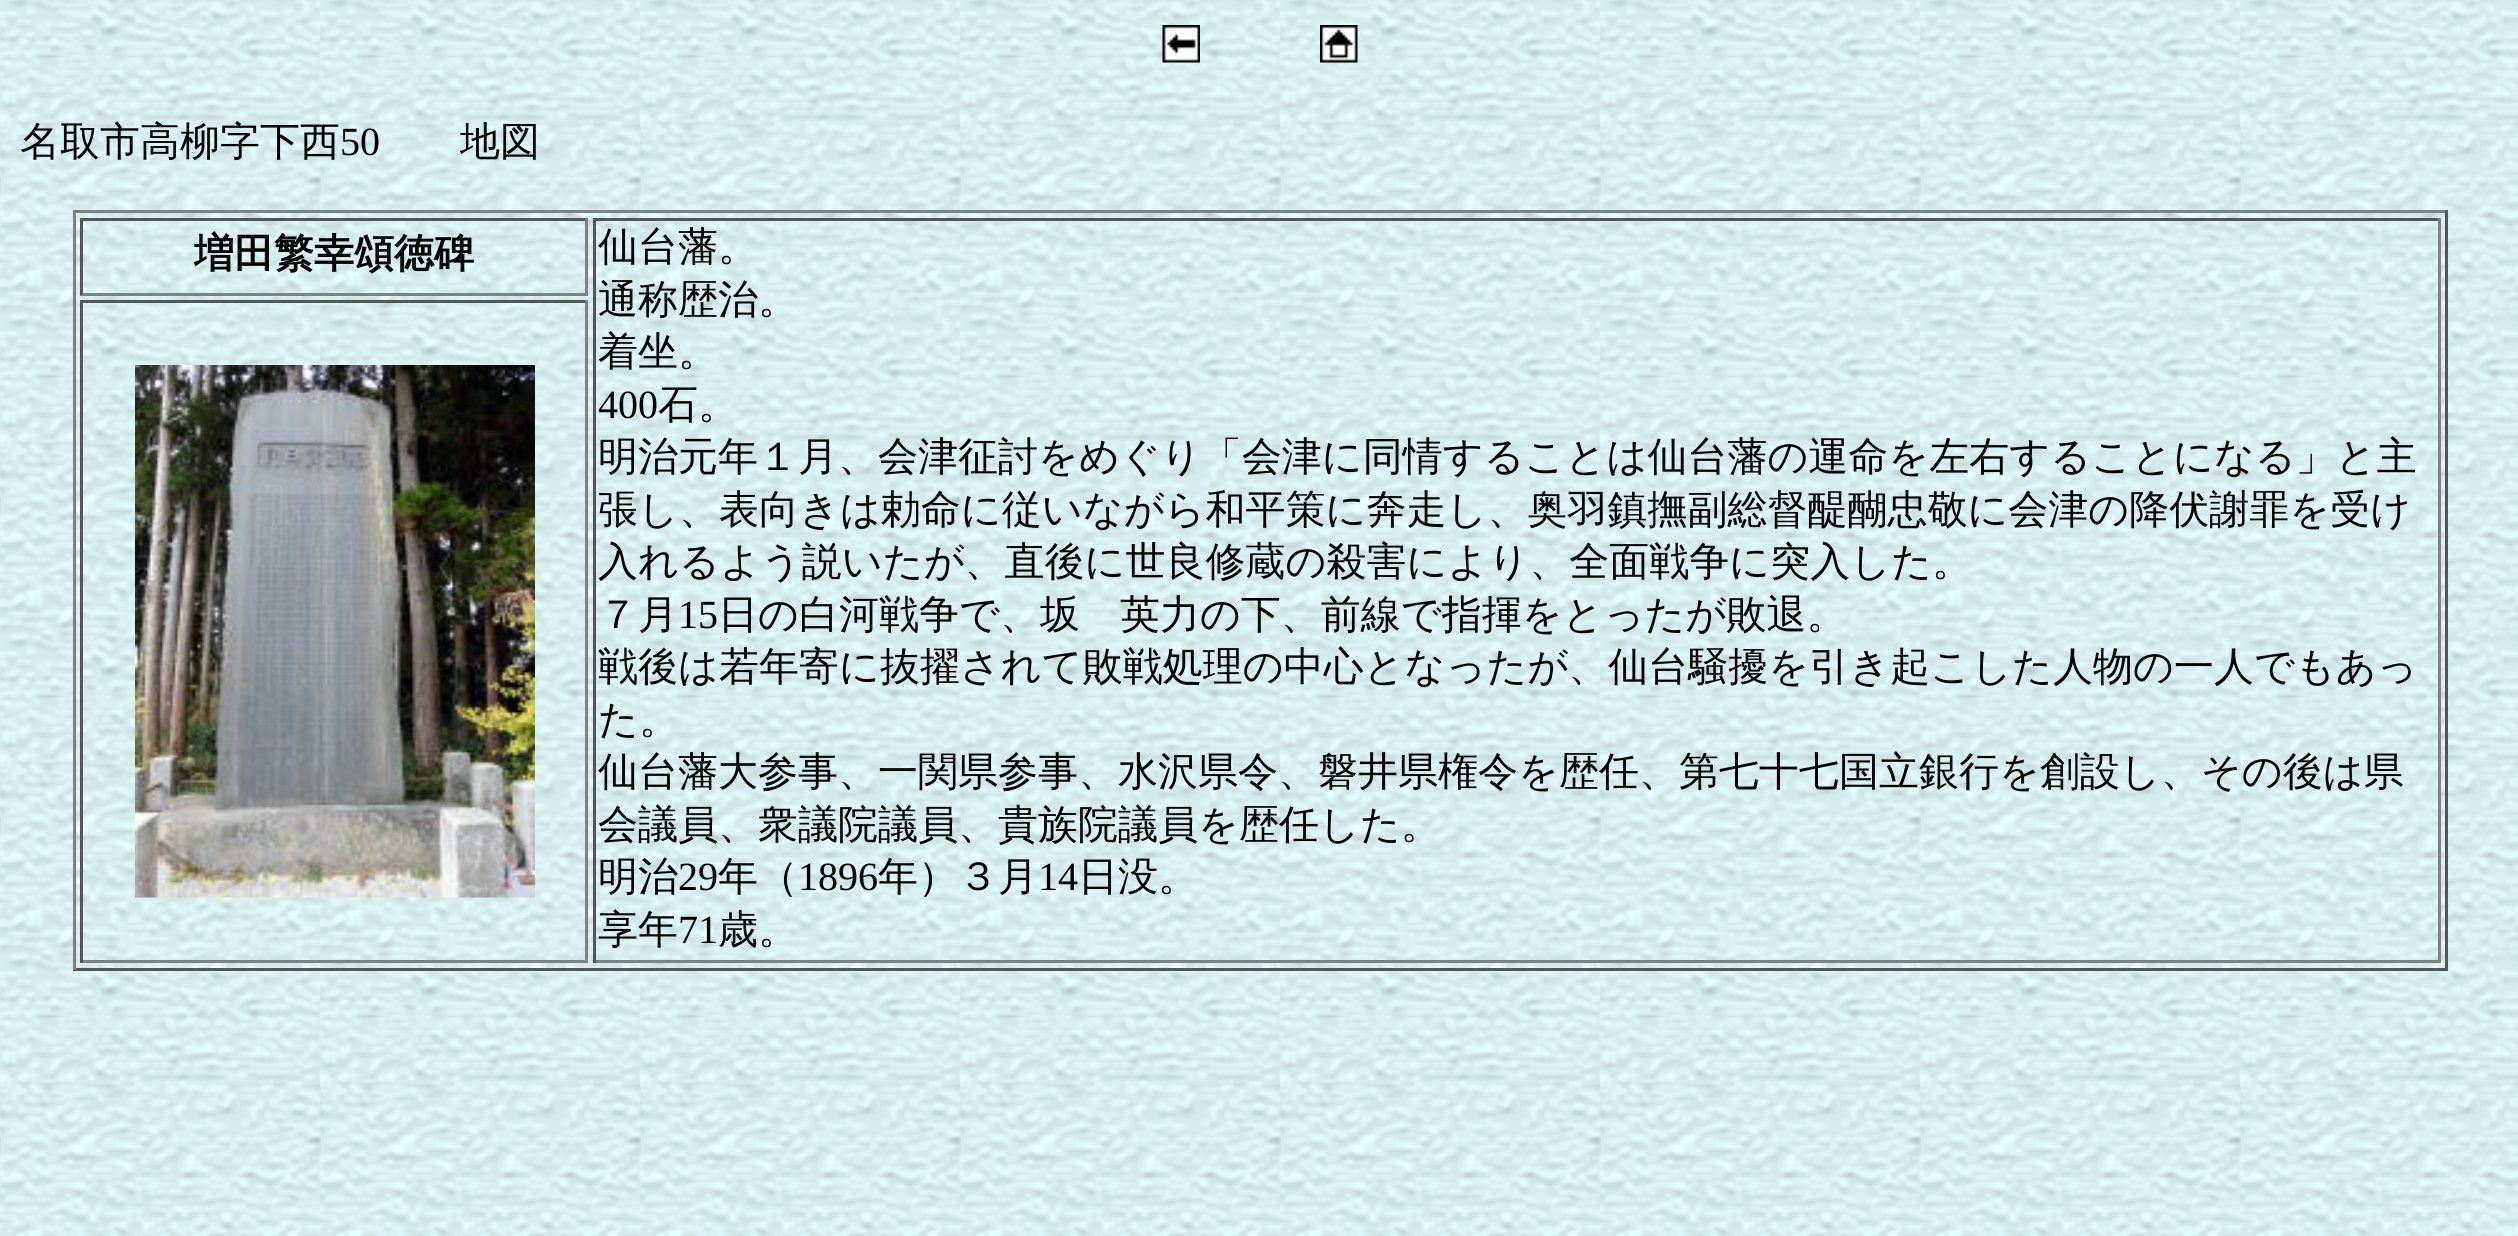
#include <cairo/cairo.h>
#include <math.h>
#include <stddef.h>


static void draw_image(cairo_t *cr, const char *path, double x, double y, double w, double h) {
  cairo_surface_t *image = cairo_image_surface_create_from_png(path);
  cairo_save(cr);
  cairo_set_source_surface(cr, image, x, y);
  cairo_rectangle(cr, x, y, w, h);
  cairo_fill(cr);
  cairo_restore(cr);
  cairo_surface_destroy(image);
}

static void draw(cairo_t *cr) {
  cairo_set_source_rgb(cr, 1, 1, 1);
  cairo_paint(cr);
  draw_image(cr, "images/1.png", 0, 0, 2518, 1236);
  draw_image(cr, "images/2.png", 1162, 25, 38, 38);
  draw_image(cr, "images/3.png", 1320, 25, 38, 38);
  cairo_set_source_rgb(cr, 128 / 255.0, 128 / 255.0, 128 / 255.0);
  cairo_rectangle(cr, 73, 210, 2375, 3);
  cairo_fill(cr);
  cairo_set_source_rgb(cr, 85 / 255.0, 85 / 255.0, 85 / 255.0);
  cairo_rectangle(cr, 2445, 210, 3, 760);
  cairo_fill(cr);
  cairo_rectangle(cr, 73, 968, 2375, 3);
  cairo_fill(cr);
  cairo_set_source_rgb(cr, 128 / 255.0, 128 / 255.0, 128 / 255.0);
  cairo_rectangle(cr, 73, 210, 3, 760);
  cairo_fill(cr);
  cairo_set_source_rgb(cr, 85 / 255.0, 85 / 255.0, 85 / 255.0);
  cairo_rectangle(cr, 80, 218, 508, 3);
  cairo_fill(cr);
  cairo_set_source_rgb(cr, 128 / 255.0, 128 / 255.0, 128 / 255.0);
  cairo_rectangle(cr, 585, 218, 3, 77);
  cairo_fill(cr);
  cairo_rectangle(cr, 80, 293, 508, 3);
  cairo_fill(cr);
  cairo_set_source_rgb(cr, 85 / 255.0, 85 / 255.0, 85 / 255.0);
  cairo_rectangle(cr, 80, 218, 3, 77);
  cairo_fill(cr);
  cairo_rectangle(cr, 593, 218, 1847, 3);
  cairo_fill(cr);
  cairo_set_source_rgb(cr, 128 / 255.0, 128 / 255.0, 128 / 255.0);
  cairo_rectangle(cr, 2438, 218, 3, 745);
  cairo_fill(cr);
  cairo_rectangle(cr, 593, 960, 1847, 3);
  cairo_fill(cr);
  cairo_set_source_rgb(cr, 85 / 255.0, 85 / 255.0, 85 / 255.0);
  cairo_rectangle(cr, 593, 218, 3, 745);
  cairo_fill(cr);
  cairo_rectangle(cr, 80, 300, 508, 3);
  cairo_fill(cr);
  cairo_set_source_rgb(cr, 128 / 255.0, 128 / 255.0, 128 / 255.0);
  cairo_rectangle(cr, 585, 300, 3, 663);
  cairo_fill(cr);
  cairo_rectangle(cr, 80, 960, 508, 3);
  cairo_fill(cr);
  cairo_set_source_rgb(cr, 85 / 255.0, 85 / 255.0, 85 / 255.0);
  cairo_rectangle(cr, 80, 300, 3, 663);
  cairo_fill(cr);
  draw_image(cr, "images/4.png", 135, 365, 400, 533);
  cairo_select_font_face(cr, "WenQuanYi Zen Hei Medium", CAIRO_FONT_SLANT_NORMAL, CAIRO_FONT_WEIGHT_NORMAL);
  cairo_set_font_size(cr, 40);
  cairo_set_source_rgb(cr, 0, 0, 0);
  cairo_move_to(cr, 20, 155);
  cairo_show_text(cr, "名取市高柳字下西");
  cairo_select_font_face(cr, "Liberation Serif", CAIRO_FONT_SLANT_NORMAL, CAIRO_FONT_WEIGHT_NORMAL);
  cairo_move_to(cr, 340, 155);
  cairo_show_text(cr, "50");
  cairo_select_font_face(cr, "WenQuanYi Zen Hei Medium", CAIRO_FONT_SLANT_NORMAL, CAIRO_FONT_WEIGHT_NORMAL);
  cairo_move_to(cr, 460, 155);
  cairo_show_text(cr, "地図");
  cairo_select_font_face(cr, "WenQuanYi Zen Hei", CAIRO_FONT_SLANT_NORMAL, CAIRO_FONT_WEIGHT_BOLD);
  cairo_move_to(cr, 194, 267);
  cairo_show_text(cr, "増田繁幸頌徳碑");
  cairo_select_font_face(cr, "WenQuanYi Zen Hei Medium", CAIRO_FONT_SLANT_NORMAL, CAIRO_FONT_WEIGHT_NORMAL);
  cairo_move_to(cr, 598, 260);
  cairo_show_text(cr, "仙台藩。");
  cairo_move_to(cr, 598, 313);
  cairo_show_text(cr, "通称歴治。");
  cairo_move_to(cr, 598, 365);
  cairo_show_text(cr, "着坐。");
  cairo_select_font_face(cr, "Liberation Serif", CAIRO_FONT_SLANT_NORMAL, CAIRO_FONT_WEIGHT_NORMAL);
  cairo_move_to(cr, 598, 418);
  cairo_show_text(cr, "400");
  cairo_select_font_face(cr, "WenQuanYi Zen Hei Medium", CAIRO_FONT_SLANT_NORMAL, CAIRO_FONT_WEIGHT_NORMAL);
  cairo_move_to(cr, 658, 418);
  cairo_show_text(cr, "石。");
  cairo_move_to(cr, 598, 470);
  cairo_show_text(cr, "明治元年１月、会津征討をめぐり「会津に同情することは仙台藩の運命を左右することになる」と主");
  cairo_move_to(cr, 598, 523);
  cairo_show_text(cr, "張し、表向きは勅命に従いながら和平策に奔走し、奥羽鎮撫副総督醍醐忠敬に会津の降伏謝罪を受け");
  cairo_move_to(cr, 598, 575);
  cairo_show_text(cr, "入れるよう説いたが、直後に世良修蔵の殺害により、全面戦争に突入した。");
  cairo_move_to(cr, 598, 628);
  cairo_show_text(cr, "７月");
  cairo_select_font_face(cr, "Liberation Serif", CAIRO_FONT_SLANT_NORMAL, CAIRO_FONT_WEIGHT_NORMAL);
  cairo_move_to(cr, 678, 628);
  cairo_show_text(cr, "15");
  cairo_select_font_face(cr, "WenQuanYi Zen Hei Medium", CAIRO_FONT_SLANT_NORMAL, CAIRO_FONT_WEIGHT_NORMAL);
  cairo_move_to(cr, 718, 628);
  cairo_show_text(cr, "日の白河戦争で、坂　英力の下、前線で指揮をとったが敗退。");
  cairo_move_to(cr, 598, 680);
  cairo_show_text(cr, "戦後は若年寄に抜擢されて敗戦処理の中心となったが、仙台騒擾を引き起こした人物の一人でもあっ");
  cairo_move_to(cr, 598, 733);
  cairo_show_text(cr, "た。");
  cairo_move_to(cr, 598, 785);
  cairo_show_text(cr, "仙台藩大参事、一関県参事、水沢県令、磐井県権令を歴任、第七十七国立銀行を創設し、その後は県");
  cairo_move_to(cr, 598, 838);
  cairo_show_text(cr, "会議員、衆議院議員、貴族院議員を歴任した。");
  cairo_move_to(cr, 598, 890);
  cairo_show_text(cr, "明治");
  cairo_select_font_face(cr, "Liberation Serif", CAIRO_FONT_SLANT_NORMAL, CAIRO_FONT_WEIGHT_NORMAL);
  cairo_move_to(cr, 678, 890);
  cairo_show_text(cr, "29");
  cairo_select_font_face(cr, "WenQuanYi Zen Hei Medium", CAIRO_FONT_SLANT_NORMAL, CAIRO_FONT_WEIGHT_NORMAL);
  cairo_move_to(cr, 718, 890);
  cairo_show_text(cr, "年（");
  cairo_select_font_face(cr, "Liberation Serif", CAIRO_FONT_SLANT_NORMAL, CAIRO_FONT_WEIGHT_NORMAL);
  cairo_move_to(cr, 798, 890);
  cairo_show_text(cr, "1896");
  cairo_select_font_face(cr, "WenQuanYi Zen Hei Medium", CAIRO_FONT_SLANT_NORMAL, CAIRO_FONT_WEIGHT_NORMAL);
  cairo_move_to(cr, 878, 890);
  cairo_show_text(cr, "年）３月");
  cairo_select_font_face(cr, "Liberation Serif", CAIRO_FONT_SLANT_NORMAL, CAIRO_FONT_WEIGHT_NORMAL);
  cairo_move_to(cr, 1038, 890);
  cairo_show_text(cr, "14");
  cairo_select_font_face(cr, "WenQuanYi Zen Hei Medium", CAIRO_FONT_SLANT_NORMAL, CAIRO_FONT_WEIGHT_NORMAL);
  cairo_move_to(cr, 1078, 890);
  cairo_show_text(cr, "日没。");
  cairo_move_to(cr, 598, 943);
  cairo_show_text(cr, "享年");
  cairo_select_font_face(cr, "Liberation Serif", CAIRO_FONT_SLANT_NORMAL, CAIRO_FONT_WEIGHT_NORMAL);
  cairo_move_to(cr, 678, 943);
  cairo_show_text(cr, "71");
  cairo_select_font_face(cr, "WenQuanYi Zen Hei Medium", CAIRO_FONT_SLANT_NORMAL, CAIRO_FONT_WEIGHT_NORMAL);
  cairo_move_to(cr, 718, 943);
  cairo_show_text(cr, "歳。");
}

int main(void) {
  cairo_surface_t *surface = cairo_image_surface_create(CAIRO_FORMAT_RGB24, 2518, 1236);
  cairo_t *cr = cairo_create(surface);
  cairo_font_options_t *options = cairo_font_options_create();
  cairo_font_options_set_hint_metrics(options, CAIRO_HINT_METRICS_OFF);
  cairo_font_options_set_hint_style(options, CAIRO_HINT_STYLE_NONE);
  cairo_set_font_options(cr, options);
  cairo_set_miter_limit(cr, 4);
  draw(cr);
  cairo_surface_write_to_png(surface, "out.png");
  cairo_font_options_destroy(options);
  cairo_destroy(cr);
  cairo_surface_destroy(surface);
  return 0;
}
